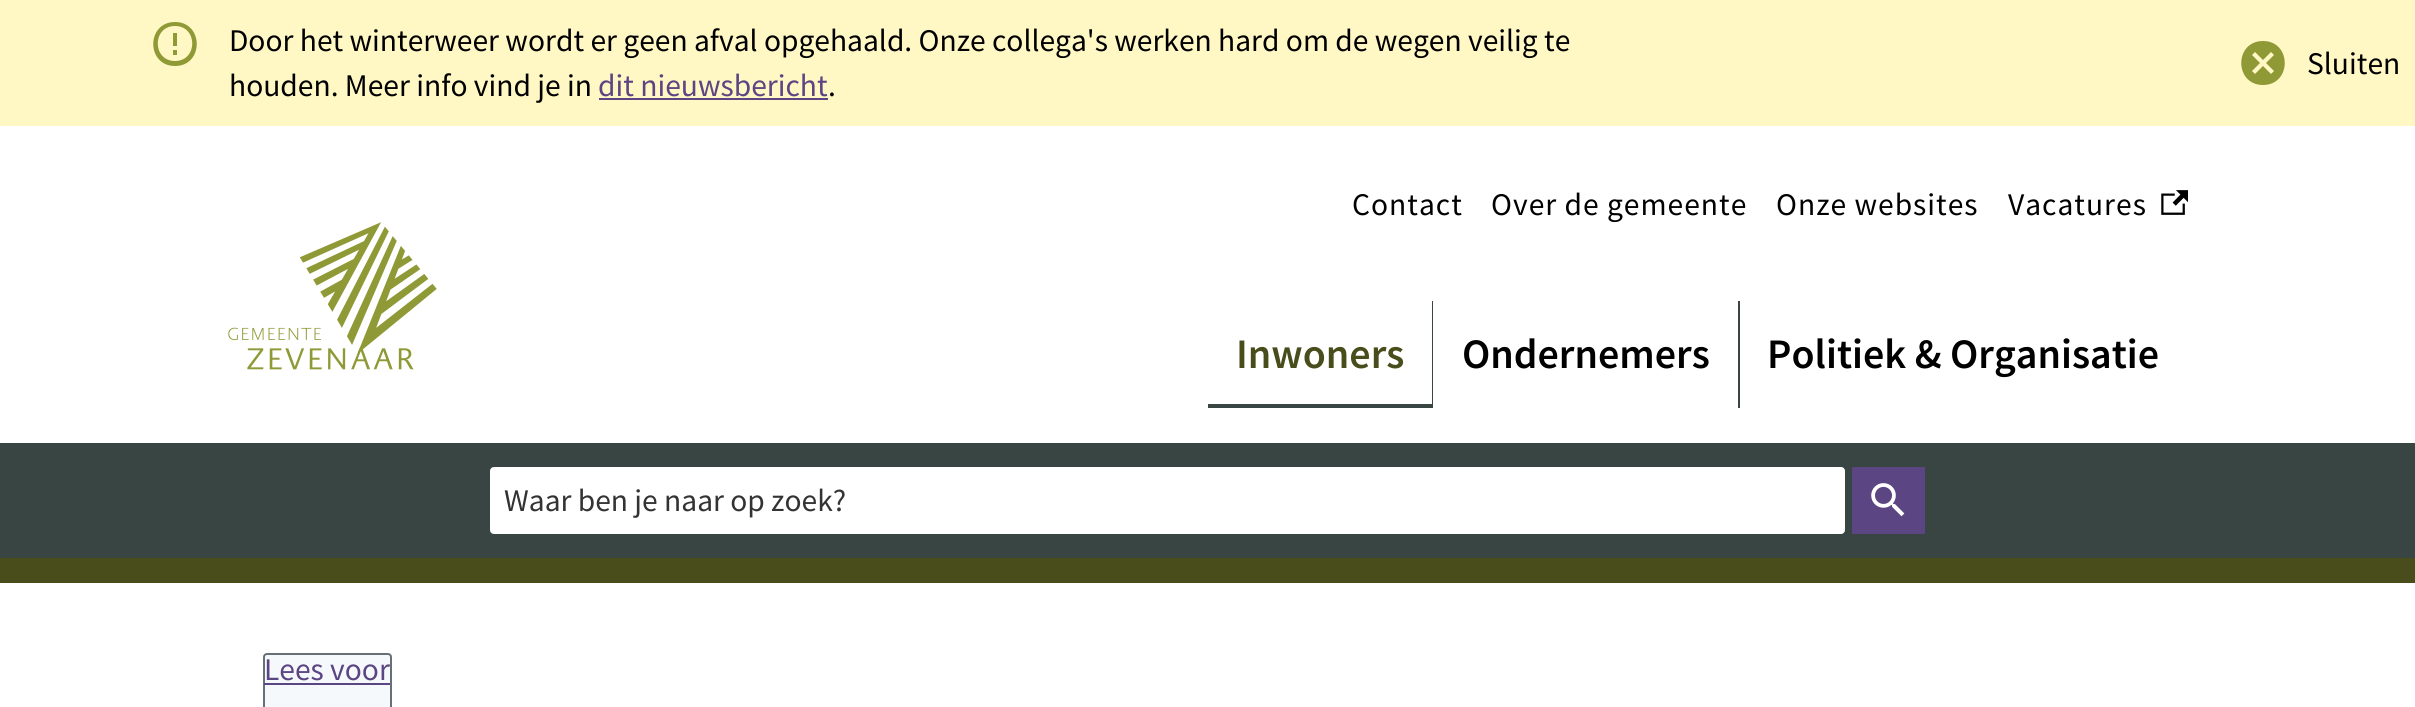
#include <cairo/cairo.h>
#include <math.h>
#include <stddef.h>


static void draw_spaced(cairo_t *cr, double x, double y, const char *s, double letter, double word) {
  cairo_move_to(cr, x, y);
  while (*s) {
    char ch[5] = {0};
    int n = 0;
    do ch[n++] = *s++; while ((*s & 0xC0) == 0x80);
    cairo_show_text(cr, ch);
    cairo_rel_move_to(cr, letter + word * (*ch == ' '), 0);
  }
}

static void rounded_rect(cairo_t *cr, double x, double y, double w, double h, double r) {
  cairo_new_sub_path(cr);
  cairo_arc(cr, x + w - r, y + h - r, r, 0, M_PI / 2);
  cairo_arc(cr, x + r, y + h - r, r, M_PI / 2, M_PI);
  cairo_arc(cr, x + r, y + r, r, M_PI, 1.5 * M_PI);
  cairo_arc(cr, x + w - r, y + r, r, 1.5 * M_PI, 2 * M_PI);
  cairo_close_path(cr);
}

static void draw_image(cairo_t *cr, const char *path, double x, double y, double w, double h) {
  cairo_surface_t *image = cairo_image_surface_create_from_png(path);
  cairo_save(cr);
  cairo_set_source_surface(cr, image, x, y);
  cairo_rectangle(cr, x, y, w, h);
  cairo_fill(cr);
  cairo_restore(cr);
  cairo_surface_destroy(image);
}

static void draw(cairo_t *cr) {
  cairo_set_source_rgb(cr, 1, 1, 1);
  cairo_paint(cr);
  cairo_set_source_rgb(cr, 1, 247 / 255.0, 196 / 255.0);
  cairo_rectangle(cr, 0, 0, 2415, 126);
  cairo_fill(cr);
  cairo_set_source_rgb(cr, 143 / 255.0, 153 / 255.0, 53 / 255.0);
  cairo_new_path(cr);
  cairo_move_to(cr, 173, 50);
  cairo_line_to(cr, 177, 50);
  cairo_line_to(cr, 177, 55);
  cairo_line_to(cr, 173, 55);
  cairo_close_path(cr);
  cairo_move_to(cr, 173, 33);
  cairo_line_to(cr, 177, 33);
  cairo_line_to(cr, 177, 46);
  cairo_line_to(cr, 173, 46);
  cairo_close_path(cr);
  cairo_move_to(cr, 175, 22);
  cairo_curve_to(cr, 146, 22, 146, 66, 175, 66);
  cairo_curve_to(cr, 204, 66, 204, 22, 175, 22);
  cairo_close_path(cr);
  cairo_move_to(cr, 175, 61);
  cairo_curve_to(cr, 152, 61, 152, 26, 175, 26);
  cairo_curve_to(cr, 198, 26, 198, 61, 175, 61);
  cairo_close_path(cr);
  cairo_fill(cr);
  cairo_set_source_rgb(cr, 91 / 255.0, 69 / 255.0, 130 / 255.0);
  cairo_rectangle(cr, 599, 98, 229, 2);
  cairo_fill(cr);
  cairo_set_source_rgb(cr, 143 / 255.0, 153 / 255.0, 53 / 255.0);
  cairo_new_path(cr);
  cairo_move_to(cr, 2263, 41);
  cairo_curve_to(cr, 2234, 41, 2234, 85, 2263, 85);
  cairo_curve_to(cr, 2292, 85, 2292, 41, 2263, 41);
  cairo_close_path(cr);
  cairo_move_to(cr, 2274, 71);
  cairo_line_to(cr, 2271, 74);
  cairo_line_to(cr, 2263, 66);
  cairo_line_to(cr, 2255, 74);
  cairo_line_to(cr, 2252, 71);
  cairo_line_to(cr, 2260, 63);
  cairo_line_to(cr, 2252, 55);
  cairo_line_to(cr, 2255, 52);
  cairo_line_to(cr, 2263, 60);
  cairo_line_to(cr, 2271, 52);
  cairo_line_to(cr, 2274, 55);
  cairo_line_to(cr, 2266, 63);
  cairo_close_path(cr);
  cairo_fill(cr);
  draw_image(cr, "images/1.png", 228, 222, 209, 148);
  draw_image(cr, "images/2.png", 2161, 190, 27, 25);
  cairo_set_source_rgb(cr, 57 / 255.0, 69 / 255.0, 66 / 255.0);
  cairo_rectangle(cr, 1432, 301, 1, 107);
  cairo_fill(cr);
  cairo_rectangle(cr, 1208, 404, 224, 4);
  cairo_fill(cr);
  cairo_rectangle(cr, 1738, 301, 2, 107);
  cairo_fill(cr);
  cairo_rectangle(cr, 0, 443, 2415, 115);
  cairo_fill(cr);
  cairo_set_source_rgb(cr, 72 / 255.0, 77 / 255.0, 27 / 255.0);
  cairo_rectangle(cr, 0, 558, 2415, 25);
  cairo_fill(cr);
  cairo_set_source_rgb(cr, 1, 1, 1);
  rounded_rect(cr, 490, 467, 1355, 67, 4);
  cairo_fill(cr);
  cairo_set_source_rgb(cr, 91 / 255.0, 69 / 255.0, 130 / 255.0);
  cairo_rectangle(cr, 1852, 467, 73, 67);
  cairo_fill(cr);
  draw_image(cr, "images/3.png", 1871, 483, 34, 34);
  cairo_set_source_rgb(cr, 246 / 255.0, 249 / 255.0, 252 / 255.0);
  rounded_rect(cr, 264, 654, 127, 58, 3);
  cairo_fill_preserve(cr);
  cairo_set_source_rgb(cr, 103 / 255.0, 112 / 255.0, 119 / 255.0);
  cairo_stroke(cr);
  cairo_set_source_rgb(cr, 91 / 255.0, 69 / 255.0, 130 / 255.0);
  cairo_rectangle(cr, 264, 683, 126, 2);
  cairo_fill(cr);
  cairo_select_font_face(cr, "Source Sans Pro", CAIRO_FONT_SLANT_NORMAL, CAIRO_FONT_WEIGHT_NORMAL);
  cairo_set_font_size(cr, 31.5);
  cairo_set_source_rgb(cr, 0, 0, 0);
  cairo_move_to(cr, 229, 51);
  cairo_show_text(cr, "Door het winterweer wordt er geen afval opgehaald. Onze collega's werken hard om de wegen veilig te");
  cairo_move_to(cr, 229, 96);
  cairo_show_text(cr, "houden. Meer info vind je in");
  cairo_set_source_rgb(cr, 91 / 255.0, 69 / 255.0, 130 / 255.0);
  cairo_move_to(cr, 598, 96);
  cairo_show_text(cr, "dit nieuwsbericht");
  cairo_set_source_rgb(cr, 0, 0, 0);
  cairo_move_to(cr, 828, 96);
  cairo_show_text(cr, ".");
  cairo_move_to(cr, 2307, 74);
  cairo_show_text(cr, "Sluiten");
  draw_spaced(cr, 1352, 215, "Contact", 1, 0);
  draw_spaced(cr, 1491, 215, "Over de gemeente", 1, 0);
  draw_spaced(cr, 1776, 215, "Onze websites", 1, 0);
  draw_spaced(cr, 2008, 215, "Vacatures", 1, 0);
  cairo_select_font_face(cr, "Source Sans Pro SemiBold", CAIRO_FONT_SLANT_NORMAL, CAIRO_FONT_WEIGHT_NORMAL);
  cairo_set_font_size(cr, 42);
  cairo_set_source_rgb(cr, 72 / 255.0, 77 / 255.0, 27 / 255.0);
  cairo_move_to(cr, 1236, 368);
  cairo_show_text(cr, "Inwoners");
  cairo_set_source_rgb(cr, 0, 0, 0);
  cairo_move_to(cr, 1462, 368);
  cairo_show_text(cr, "Ondernemers");
  cairo_move_to(cr, 1767, 368);
  cairo_show_text(cr, "Politiek & Organisatie");
  cairo_select_font_face(cr, "Source Sans Pro", CAIRO_FONT_SLANT_NORMAL, CAIRO_FONT_WEIGHT_NORMAL);
  cairo_set_font_size(cr, 31.5);
  cairo_set_source_rgb(cr, 51 / 255.0, 51 / 255.0, 51 / 255.0);
  cairo_move_to(cr, 504, 511);
  cairo_show_text(cr, "Waar ben je naar op zoek?");
  cairo_set_source_rgb(cr, 91 / 255.0, 69 / 255.0, 130 / 255.0);
  cairo_move_to(cr, 264, 680);
  cairo_show_text(cr, "Lees voor");
}

int main(void) {
  cairo_surface_t *surface = cairo_image_surface_create(CAIRO_FORMAT_RGB24, 2415, 707);
  cairo_t *cr = cairo_create(surface);
  cairo_font_options_t *options = cairo_font_options_create();
  cairo_font_options_set_hint_metrics(options, CAIRO_HINT_METRICS_OFF);
  cairo_font_options_set_hint_style(options, CAIRO_HINT_STYLE_NONE);
  cairo_set_font_options(cr, options);
  cairo_set_miter_limit(cr, 4);
  draw(cr);
  cairo_surface_write_to_png(surface, "out.png");
  cairo_font_options_destroy(options);
  cairo_destroy(cr);
  cairo_surface_destroy(surface);
  return 0;
}
